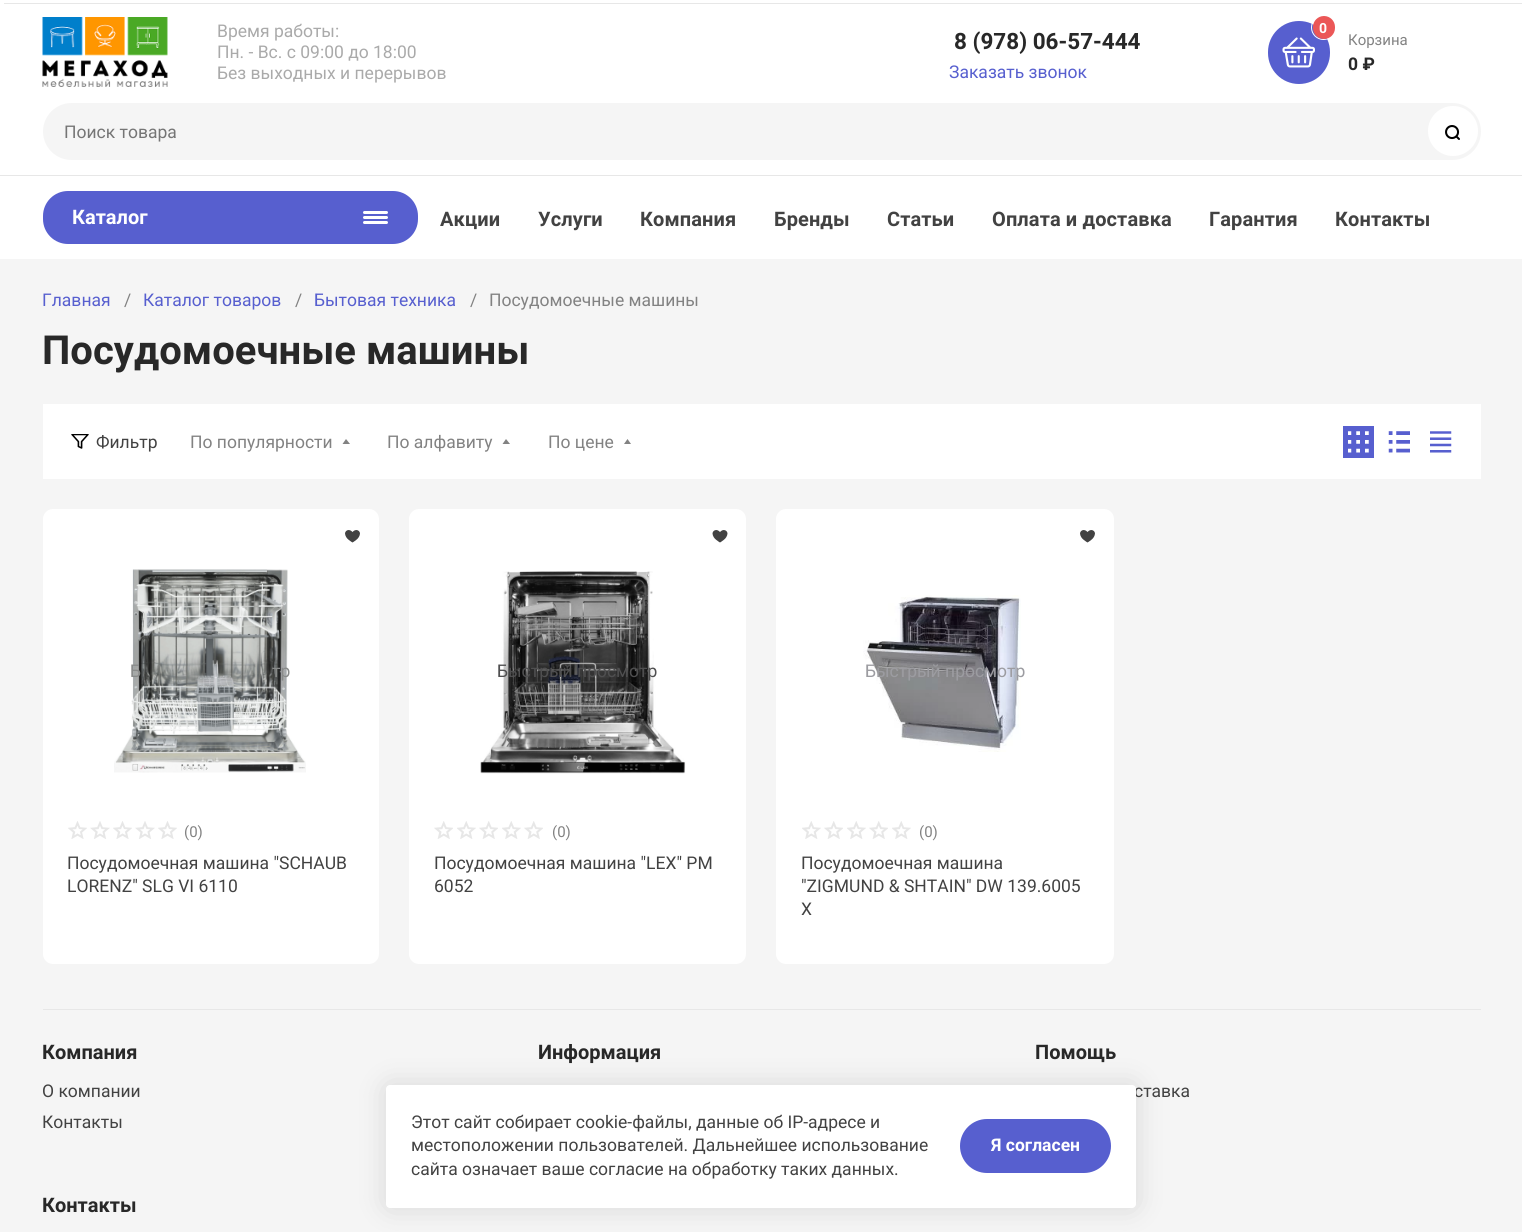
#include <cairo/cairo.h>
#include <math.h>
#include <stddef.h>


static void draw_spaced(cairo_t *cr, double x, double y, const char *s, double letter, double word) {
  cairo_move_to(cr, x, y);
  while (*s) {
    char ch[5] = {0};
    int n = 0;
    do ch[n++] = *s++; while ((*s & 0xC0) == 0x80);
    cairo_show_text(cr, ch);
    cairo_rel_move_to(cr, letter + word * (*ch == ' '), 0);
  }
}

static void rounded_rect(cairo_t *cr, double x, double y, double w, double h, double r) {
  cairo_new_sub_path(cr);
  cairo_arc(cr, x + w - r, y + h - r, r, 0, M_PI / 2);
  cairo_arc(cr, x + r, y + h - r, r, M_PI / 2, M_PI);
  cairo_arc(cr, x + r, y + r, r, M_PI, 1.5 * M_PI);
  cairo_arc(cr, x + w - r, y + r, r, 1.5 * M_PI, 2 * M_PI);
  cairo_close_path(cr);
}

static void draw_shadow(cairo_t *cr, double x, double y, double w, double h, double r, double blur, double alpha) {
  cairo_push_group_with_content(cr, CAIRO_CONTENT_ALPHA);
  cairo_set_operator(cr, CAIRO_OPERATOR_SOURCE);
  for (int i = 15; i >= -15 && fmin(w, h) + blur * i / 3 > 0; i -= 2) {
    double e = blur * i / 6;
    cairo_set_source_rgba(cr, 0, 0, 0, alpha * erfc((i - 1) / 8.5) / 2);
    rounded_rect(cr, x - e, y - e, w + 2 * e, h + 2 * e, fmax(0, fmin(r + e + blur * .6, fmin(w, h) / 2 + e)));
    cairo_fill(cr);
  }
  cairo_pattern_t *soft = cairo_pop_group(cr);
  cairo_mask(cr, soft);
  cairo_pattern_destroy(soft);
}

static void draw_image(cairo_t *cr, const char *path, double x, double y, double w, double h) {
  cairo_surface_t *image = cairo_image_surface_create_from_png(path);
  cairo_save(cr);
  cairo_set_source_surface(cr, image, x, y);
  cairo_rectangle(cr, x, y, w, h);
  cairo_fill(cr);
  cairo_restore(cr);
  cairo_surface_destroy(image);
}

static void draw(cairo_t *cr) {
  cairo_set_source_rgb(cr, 245 / 255.0, 245 / 255.0, 245 / 255.0);
  cairo_paint(cr);
  cairo_set_source_rgb(cr, 1, 1, 1);
  cairo_rectangle(cr, 0, 0, 1522, 259);
  cairo_fill(cr);
  cairo_set_source_rgb(cr, 231 / 255.0, 231 / 255.0, 231 / 255.0);
  cairo_rectangle(cr, 4, 3, 1518, 1);
  cairo_fill(cr);
  cairo_rectangle(cr, 0, 175, 1522, 1);
  cairo_fill(cr);
  draw_image(cr, "images/1.png", 42, 17, 126, 70);
  cairo_set_source_rgb(cr, 87 / 255.0, 95 / 255.0, 207 / 255.0);
  rounded_rect(cr, 1268, 21, 62, 63, 31);
  cairo_fill(cr);
  draw_image(cr, "images/2.png", 1282, 37, 33, 31);
  cairo_arc(cr, 1323.5, 27.5, 12, 0, 2 * M_PI);
  cairo_set_source_rgb(cr, 1, 1, 1);
  cairo_set_line_width(cr, 1);
  cairo_stroke(cr);
  cairo_set_source_rgb(cr, 235 / 255.0, 87 / 255.0, 87 / 255.0);
  rounded_rect(cr, 1313, 16, 22, 23, 11);
  cairo_fill(cr);
  cairo_set_source_rgb(cr, 245 / 255.0, 245 / 255.0, 245 / 255.0);
  rounded_rect(cr, 43, 103, 1438, 57, 28.5);
  cairo_fill(cr);
  cairo_set_source_rgb(cr, 1, 1, 1);
  cairo_arc(cr, 1453, 131, 25, 0, 2 * M_PI);
  cairo_fill(cr);
  draw_image(cr, "images/3.png", 1445, 125, 15, 15);
  cairo_set_source_rgb(cr, 87 / 255.0, 95 / 255.0, 207 / 255.0);
  rounded_rect(cr, 43, 191, 375, 53, 25);
  cairo_fill(cr);
  cairo_set_source_rgb(cr, 1, 1, 1);
  rounded_rect(cr, 363, 211, 25, 3, 1.5);
  cairo_fill(cr);
  rounded_rect(cr, 363, 216, 25, 3, 1.5);
  cairo_fill(cr);
  rounded_rect(cr, 363, 221, 25, 3, 1.5);
  cairo_fill(cr);
  cairo_rectangle(cr, 43, 404, 1438, 75);
  cairo_fill(cr);
  draw_image(cr, "images/4.png", 71, 434, 18, 15);
  cairo_set_source_rgb(cr, 130 / 255.0, 130 / 255.0, 130 / 255.0);
  cairo_new_path(cr);
  cairo_move_to(cr, 350, 444);
  cairo_line_to(cr, 342.5, 444);
  cairo_line_to(cr, 346, 439);
  cairo_close_path(cr);
  cairo_fill(cr);
  cairo_new_path(cr);
  cairo_move_to(cr, 510, 444);
  cairo_line_to(cr, 502.5, 444);
  cairo_line_to(cr, 506, 439);
  cairo_close_path(cr);
  cairo_fill(cr);
  cairo_new_path(cr);
  cairo_move_to(cr, 631, 444);
  cairo_line_to(cr, 624, 444);
  cairo_line_to(cr, 627.5, 439);
  cairo_close_path(cr);
  cairo_fill(cr);
  cairo_set_source_rgb(cr, 87 / 255.0, 95 / 255.0, 207 / 255.0);
  cairo_rectangle(cr, 1343, 426, 31, 32);
  cairo_fill(cr);
  draw_image(cr, "images/5.png", 1348, 431, 21, 22);
  draw_image(cr, "images/6.png", 1388, 431, 22, 22);
  draw_image(cr, "images/7.png", 1430, 431, 22, 22);
  cairo_set_source_rgb(cr, 1, 1, 1);
  rounded_rect(cr, 43, 509, 336, 455, 10);
  cairo_fill(cr);
  draw_image(cr, "images/8.png", 345, 530, 15, 13);
  draw_image(cr, "images/9.png", 114, 569, 192, 204);
  draw_image(cr, "images/10.png", 68, 821, 19, 18);
  draw_image(cr, "images/11.png", 90, 821, 20, 18);
  draw_image(cr, "images/10.png", 113, 821, 19, 18);
  draw_image(cr, "images/11.png", 135, 821, 20, 18);
  draw_image(cr, "images/10.png", 158, 821, 19, 18);
  rounded_rect(cr, 409, 509, 337, 455, 10);
  cairo_fill(cr);
  draw_image(cr, "images/12.png", 712, 530, 16, 13);
  draw_image(cr, "images/13.png", 480, 571, 206, 203);
  draw_image(cr, "images/14.png", 434, 821, 19, 18);
  draw_image(cr, "images/15.png", 457, 821, 19, 18);
  draw_image(cr, "images/14.png", 479, 821, 19, 18);
  draw_image(cr, "images/15.png", 502, 821, 19, 18);
  draw_image(cr, "images/14.png", 524, 821, 19, 18);
  rounded_rect(cr, 776, 509, 338, 455, 10);
  cairo_fill(cr);
  draw_image(cr, "images/8.png", 1080, 530, 15, 13);
  draw_image(cr, "images/16.png", 863, 595, 158, 157);
  draw_image(cr, "images/15.png", 802, 821, 19, 18);
  draw_image(cr, "images/14.png", 824, 821, 19, 18);
  draw_image(cr, "images/15.png", 847, 821, 19, 18);
  draw_image(cr, "images/14.png", 869, 821, 19, 18);
  draw_image(cr, "images/15.png", 892, 821, 19, 18);
  cairo_set_source_rgb(cr, 231 / 255.0, 231 / 255.0, 231 / 255.0);
  cairo_rectangle(cr, 43, 1009, 1438, 1);
  cairo_fill(cr);
  cairo_set_source_rgb(cr, 0, 0, 0);
  draw_shadow(cr, 386, 1085, 750, 123, 4, 15, 0.12);
  cairo_select_font_face(cr, "Roboto", CAIRO_FONT_SLANT_NORMAL, CAIRO_FONT_WEIGHT_NORMAL);
  cairo_set_font_size(cr, 17.5);
  cairo_set_source_rgb(cr, 170 / 255.0, 170 / 255.0, 170 / 255.0);
  cairo_move_to(cr, 217, 37);
  cairo_show_text(cr, "Время работы:");
  cairo_move_to(cr, 217, 58);
  cairo_show_text(cr, "Пн. - Вс. с 09:00 до 18:00");
  cairo_move_to(cr, 217, 79);
  cairo_show_text(cr, "Без выходных и перерывов");
  cairo_select_font_face(cr, "Roboto", CAIRO_FONT_SLANT_NORMAL, CAIRO_FONT_WEIGHT_BOLD);
  cairo_set_font_size(cr, 22.5);
  cairo_set_source_rgb(cr, 40 / 255.0, 40 / 255.0, 40 / 255.0);
  cairo_move_to(cr, 954, 49);
  cairo_show_text(cr, "8 (978) 06-57-444");
  cairo_select_font_face(cr, "Roboto", CAIRO_FONT_SLANT_NORMAL, CAIRO_FONT_WEIGHT_NORMAL);
  cairo_set_font_size(cr, 17.5);
  cairo_set_source_rgb(cr, 87 / 255.0, 95 / 255.0, 207 / 255.0);
  cairo_move_to(cr, 949, 78);
  cairo_show_text(cr, "Заказать звонок");
  cairo_select_font_face(cr, "Roboto", CAIRO_FONT_SLANT_NORMAL, CAIRO_FONT_WEIGHT_BOLD);
  cairo_set_font_size(cr, 14);
  cairo_set_source_rgb(cr, 1, 1, 1);
  cairo_move_to(cr, 1319, 33);
  cairo_show_text(cr, "0");
  cairo_select_font_face(cr, "Roboto", CAIRO_FONT_SLANT_NORMAL, CAIRO_FONT_WEIGHT_NORMAL);
  cairo_set_font_size(cr, 15);
  cairo_set_source_rgb(cr, 130 / 255.0, 130 / 255.0, 130 / 255.0);
  cairo_move_to(cr, 1348, 45);
  cairo_show_text(cr, "Корзина");
  cairo_select_font_face(cr, "Roboto", CAIRO_FONT_SLANT_NORMAL, CAIRO_FONT_WEIGHT_BOLD);
  cairo_set_font_size(cr, 17.5);
  cairo_set_source_rgb(cr, 40 / 255.0, 40 / 255.0, 40 / 255.0);
  cairo_move_to(cr, 1348, 70);
  cairo_show_text(cr, "0 ₽");
  cairo_select_font_face(cr, "Roboto", CAIRO_FONT_SLANT_NORMAL, CAIRO_FONT_WEIGHT_NORMAL);
  cairo_set_source_rgb(cr, 117 / 255.0, 117 / 255.0, 117 / 255.0);
  cairo_move_to(cr, 64, 138);
  cairo_show_text(cr, "Поиск товара");
  cairo_select_font_face(cr, "Roboto", CAIRO_FONT_SLANT_NORMAL, CAIRO_FONT_WEIGHT_BOLD);
  cairo_set_font_size(cr, 20);
  cairo_set_source_rgb(cr, 1, 1, 1);
  cairo_move_to(cr, 72, 224);
  cairo_show_text(cr, "Каталог");
  cairo_set_source_rgb(cr, 66 / 255.0, 66 / 255.0, 66 / 255.0);
  draw_spaced(cr, 440, 226, "Акции", 0.1, 0);
  draw_spaced(cr, 538, 226, "Услуги", 0.1, 0);
  draw_spaced(cr, 640, 226, "Компания", 0.1, 0);
  draw_spaced(cr, 774, 226, "Бренды", 0.1, 0);
  draw_spaced(cr, 887, 226, "Статьи", 0.1, 0);
  draw_spaced(cr, 992, 226, "Оплата и доставка", 0.1, 0);
  draw_spaced(cr, 1209, 226, "Гарантия", 0.1, 0);
  draw_spaced(cr, 1335, 226, "Контакты", 0.1, 0);
  cairo_select_font_face(cr, "Roboto", CAIRO_FONT_SLANT_NORMAL, CAIRO_FONT_WEIGHT_NORMAL);
  cairo_set_font_size(cr, 17.5);
  cairo_set_source_rgb(cr, 87 / 255.0, 95 / 255.0, 207 / 255.0);
  cairo_move_to(cr, 42, 306);
  cairo_show_text(cr, "Главная");
  cairo_set_source_rgb(cr, 130 / 255.0, 130 / 255.0, 130 / 255.0);
  cairo_move_to(cr, 124, 306);
  cairo_show_text(cr, "/");
  cairo_set_source_rgb(cr, 87 / 255.0, 95 / 255.0, 207 / 255.0);
  cairo_move_to(cr, 143, 306);
  cairo_show_text(cr, "Каталог товаров");
  cairo_set_source_rgb(cr, 130 / 255.0, 130 / 255.0, 130 / 255.0);
  cairo_move_to(cr, 295, 306);
  cairo_show_text(cr, "/");
  cairo_set_source_rgb(cr, 87 / 255.0, 95 / 255.0, 207 / 255.0);
  cairo_move_to(cr, 314, 306);
  cairo_show_text(cr, "Бытовая техника");
  cairo_set_source_rgb(cr, 130 / 255.0, 130 / 255.0, 130 / 255.0);
  cairo_move_to(cr, 470, 306);
  cairo_show_text(cr, "/");
  cairo_move_to(cr, 489, 306);
  cairo_show_text(cr, "Посудомоечные машины");
  cairo_select_font_face(cr, "Roboto", CAIRO_FONT_SLANT_NORMAL, CAIRO_FONT_WEIGHT_BOLD);
  cairo_set_font_size(cr, 40);
  cairo_set_source_rgb(cr, 40 / 255.0, 40 / 255.0, 40 / 255.0);
  cairo_move_to(cr, 42, 364);
  cairo_show_text(cr, "Посудомоечные машины");
  cairo_select_font_face(cr, "Roboto", CAIRO_FONT_SLANT_NORMAL, CAIRO_FONT_WEIGHT_NORMAL);
  cairo_set_font_size(cr, 17.5);
  cairo_set_source_rgb(cr, 66 / 255.0, 66 / 255.0, 66 / 255.0);
  cairo_move_to(cr, 96, 448);
  cairo_show_text(cr, "Фильтр");
  cairo_set_source_rgb(cr, 130 / 255.0, 130 / 255.0, 130 / 255.0);
  cairo_move_to(cr, 190, 448);
  cairo_show_text(cr, "По популярности");
  cairo_move_to(cr, 387, 448);
  cairo_show_text(cr, "По алфавиту");
  cairo_move_to(cr, 548, 448);
  cairo_show_text(cr, "По цене");
  cairo_set_source_rgb(cr, 137 / 255.0, 139 / 255.0, 138 / 255.0);
  cairo_move_to(cr, 130, 677);
  cairo_show_text(cr, "Б");
  cairo_move_to(cr, 272, 677);
  cairo_show_text(cr, "тр");
  cairo_set_font_size(cr, 15);
  cairo_set_source_rgb(cr, 130 / 255.0, 130 / 255.0, 130 / 255.0);
  cairo_move_to(cr, 184, 837);
  cairo_show_text(cr, "(0)");
  cairo_set_font_size(cr, 17.5);
  cairo_set_source_rgb(cr, 66 / 255.0, 66 / 255.0, 66 / 255.0);
  cairo_move_to(cr, 67, 869);
  cairo_show_text(cr, "Посудомоечная машина \"SCHAUB");
  cairo_move_to(cr, 67, 892);
  cairo_show_text(cr, "LORENZ\" SLG VI 6110");
  cairo_set_source_rgb(cr, 79 / 255.0, 79 / 255.0, 80 / 255.0);
  cairo_move_to(cr, 497, 677);
  cairo_show_text(cr, "Быстрый просмотр");
  cairo_set_font_size(cr, 15);
  cairo_set_source_rgb(cr, 130 / 255.0, 130 / 255.0, 130 / 255.0);
  cairo_move_to(cr, 552, 837);
  cairo_show_text(cr, "(0)");
  cairo_set_font_size(cr, 17.5);
  cairo_set_source_rgb(cr, 66 / 255.0, 66 / 255.0, 66 / 255.0);
  cairo_move_to(cr, 434, 869);
  cairo_show_text(cr, "Посудомоечная машина \"LEX\" PM");
  cairo_move_to(cr, 434, 892);
  cairo_show_text(cr, "6052");
  cairo_set_source_rgb(cr, 156 / 255.0, 156 / 255.0, 161 / 255.0);
  cairo_move_to(cr, 865, 677);
  cairo_show_text(cr, "Быстрый просмотр");
  cairo_set_font_size(cr, 15);
  cairo_set_source_rgb(cr, 130 / 255.0, 130 / 255.0, 130 / 255.0);
  cairo_move_to(cr, 919, 837);
  cairo_show_text(cr, "(0)");
  cairo_set_font_size(cr, 17.5);
  cairo_set_source_rgb(cr, 66 / 255.0, 66 / 255.0, 66 / 255.0);
  cairo_move_to(cr, 801, 869);
  cairo_show_text(cr, "Посудомоечная машина");
  cairo_move_to(cr, 801, 892);
  cairo_show_text(cr, "\"ZIGMUND & SHTAIN\" DW 139.6005");
  cairo_move_to(cr, 801, 915);
  cairo_show_text(cr, "X");
  cairo_select_font_face(cr, "Roboto", CAIRO_FONT_SLANT_NORMAL, CAIRO_FONT_WEIGHT_BOLD);
  cairo_set_font_size(cr, 20);
  cairo_set_source_rgb(cr, 40 / 255.0, 40 / 255.0, 40 / 255.0);
  cairo_move_to(cr, 42, 1059);
  cairo_show_text(cr, "Компания");
  cairo_select_font_face(cr, "Roboto", CAIRO_FONT_SLANT_NORMAL, CAIRO_FONT_WEIGHT_NORMAL);
  cairo_set_font_size(cr, 17.5);
  cairo_set_source_rgb(cr, 66 / 255.0, 66 / 255.0, 66 / 255.0);
  cairo_move_to(cr, 42, 1097);
  cairo_show_text(cr, "О компании");
  cairo_move_to(cr, 42, 1128);
  cairo_show_text(cr, "Контакты");
  cairo_select_font_face(cr, "Roboto", CAIRO_FONT_SLANT_NORMAL, CAIRO_FONT_WEIGHT_BOLD);
  cairo_set_font_size(cr, 20);
  cairo_set_source_rgb(cr, 40 / 255.0, 40 / 255.0, 40 / 255.0);
  cairo_move_to(cr, 538, 1059);
  cairo_show_text(cr, "Информация");
  cairo_move_to(cr, 1035, 1059);
  cairo_show_text(cr, "Помощь");
  cairo_select_font_face(cr, "Roboto", CAIRO_FONT_SLANT_NORMAL, CAIRO_FONT_WEIGHT_NORMAL);
  cairo_set_font_size(cr, 17.5);
  cairo_set_source_rgb(cr, 66 / 255.0, 66 / 255.0, 66 / 255.0);
  cairo_move_to(cr, 1134, 1097);
  cairo_show_text(cr, "ставка");
  cairo_select_font_face(cr, "Roboto", CAIRO_FONT_SLANT_NORMAL, CAIRO_FONT_WEIGHT_BOLD);
  cairo_set_font_size(cr, 20);
  cairo_set_source_rgb(cr, 40 / 255.0, 40 / 255.0, 40 / 255.0);
  cairo_move_to(cr, 42, 1212);
  cairo_show_text(cr, "Контакты");
  cairo_set_source_rgb(cr, 1, 1, 1);
  rounded_rect(cr, 386, 1085, 750, 123, 4);
  cairo_fill(cr);
  cairo_select_font_face(cr, "Roboto", CAIRO_FONT_SLANT_NORMAL, CAIRO_FONT_WEIGHT_NORMAL);
  cairo_set_font_size(cr, 17.5);
  cairo_set_source_rgb(cr, 66 / 255.0, 66 / 255.0, 66 / 255.0);
  cairo_move_to(cr, 411, 1128);
  cairo_show_text(cr, "Этот сайт собирает cookie-файлы, данные об IP-адресе и");
  cairo_move_to(cr, 411, 1151);
  cairo_show_text(cr, "местоположении пользователей. Дальнейшее использование");
  cairo_move_to(cr, 411, 1175);
  cairo_show_text(cr, "сайта означает ваше согласие на обработку таких данных.");
  cairo_set_source_rgb(cr, 87 / 255.0, 95 / 255.0, 207 / 255.0);
  rounded_rect(cr, 960, 1119, 151, 54, 27);
  cairo_fill(cr);
  cairo_select_font_face(cr, "Roboto", CAIRO_FONT_SLANT_NORMAL, CAIRO_FONT_WEIGHT_BOLD);
  cairo_set_source_rgb(cr, 1, 1, 1);
  cairo_move_to(cr, 991, 1151);
  cairo_show_text(cr, "Я согласен");
}

int main(void) {
  cairo_surface_t *surface = cairo_image_surface_create(CAIRO_FORMAT_RGB24, 1522, 1232);
  cairo_t *cr = cairo_create(surface);
  cairo_font_options_t *options = cairo_font_options_create();
  cairo_font_options_set_hint_metrics(options, CAIRO_HINT_METRICS_OFF);
  cairo_font_options_set_hint_style(options, CAIRO_HINT_STYLE_NONE);
  cairo_set_font_options(cr, options);
  cairo_set_miter_limit(cr, 4);
  draw(cr);
  cairo_surface_write_to_png(surface, "out.png");
  cairo_font_options_destroy(options);
  cairo_destroy(cr);
  cairo_surface_destroy(surface);
  return 0;
}
